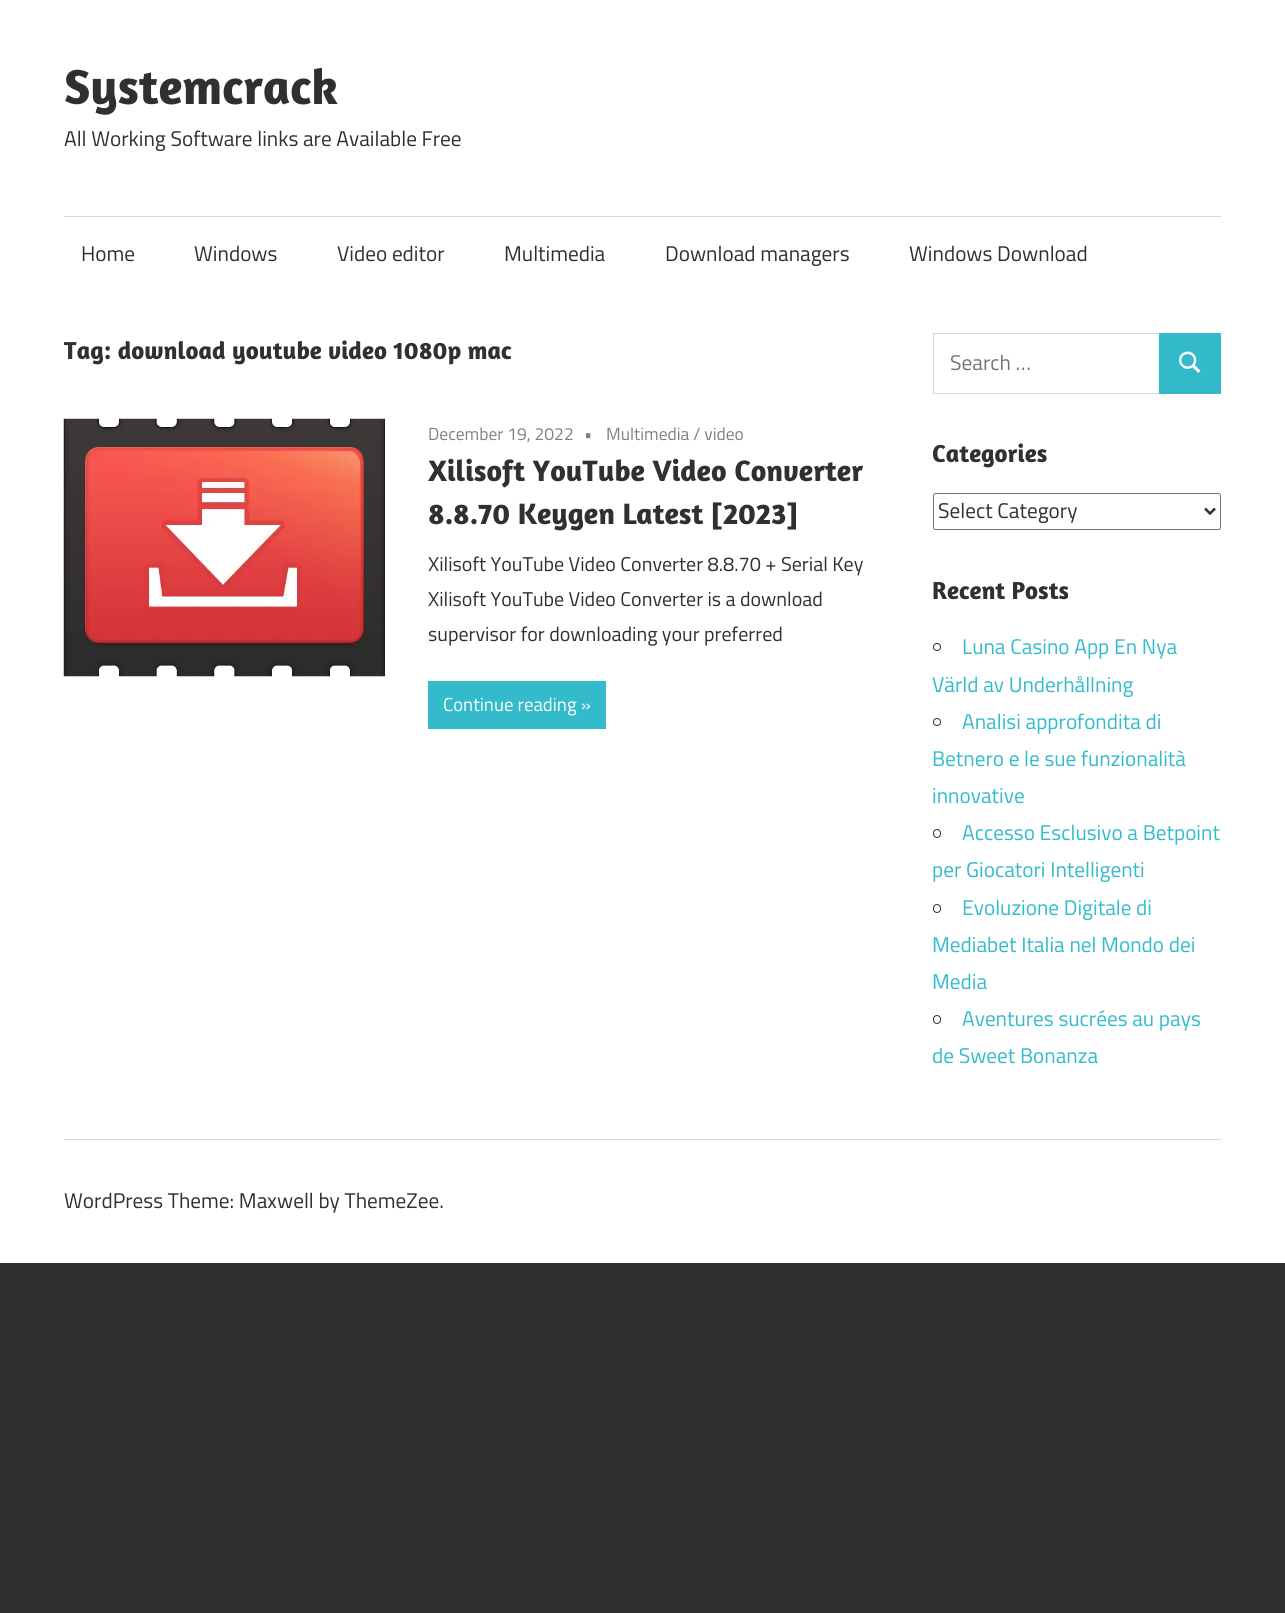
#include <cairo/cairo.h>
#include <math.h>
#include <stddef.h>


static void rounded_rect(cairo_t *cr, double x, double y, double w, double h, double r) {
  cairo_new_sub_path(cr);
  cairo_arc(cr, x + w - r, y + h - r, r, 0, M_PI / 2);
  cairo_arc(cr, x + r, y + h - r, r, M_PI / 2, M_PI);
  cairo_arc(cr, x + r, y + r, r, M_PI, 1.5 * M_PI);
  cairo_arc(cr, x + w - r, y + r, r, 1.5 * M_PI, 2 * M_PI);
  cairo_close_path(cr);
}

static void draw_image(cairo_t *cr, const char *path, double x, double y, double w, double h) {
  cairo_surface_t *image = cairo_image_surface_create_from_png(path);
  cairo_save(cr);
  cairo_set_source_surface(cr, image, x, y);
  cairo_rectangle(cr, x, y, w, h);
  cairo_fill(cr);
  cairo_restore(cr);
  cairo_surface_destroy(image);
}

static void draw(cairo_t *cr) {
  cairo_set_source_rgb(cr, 48 / 255.0, 48 / 255.0, 48 / 255.0);
  cairo_paint(cr);
  cairo_set_source_rgb(cr, 1, 1, 1);
  cairo_rectangle(cr, 0, 0, 1285, 1263);
  cairo_fill(cr);
  cairo_set_source_rgb(cr, 217 / 255.0, 217 / 255.0, 217 / 255.0);
  cairo_rectangle(cr, 64, 216, 1157, 1);
  cairo_fill(cr);
  draw_image(cr, "images/1.png", 63, 418, 322, 259);
  cairo_set_source_rgb(cr, 51 / 255.0, 187 / 255.0, 204 / 255.0);
  cairo_rectangle(cr, 428, 681, 178, 48);
  cairo_fill(cr);
  cairo_rectangle(cr, 933.5, 333.5, 226, 60);
  cairo_set_source_rgb(cr, 217 / 255.0, 217 / 255.0, 217 / 255.0);
  cairo_set_line_width(cr, 1);
  cairo_stroke(cr);
  cairo_set_source_rgb(cr, 51 / 255.0, 187 / 255.0, 204 / 255.0);
  cairo_rectangle(cr, 1159, 333, 62, 61);
  cairo_fill(cr);
  draw_image(cr, "images/2.png", 1179, 351, 22, 22);
  rounded_rect(cr, 933.5, 493.5, 287, 36, 2);
  cairo_set_source_rgb(cr, 118 / 255.0, 118 / 255.0, 118 / 255.0);
  cairo_stroke(cr);
  cairo_new_path(cr);
  cairo_move_to(cr, 1205, 508.5);
  cairo_line_to(cr, 1210, 513.5);
  cairo_line_to(cr, 1215, 508.5);
  cairo_set_source_rgb(cr, 48 / 255.0, 48 / 255.0, 48 / 255.0);
  cairo_set_line_width(cr, 2.5);
  cairo_stroke(cr);
  cairo_arc(cr, 937, 647, 3.5, 0, 2 * M_PI);
  cairo_set_line_width(cr, 1);
  cairo_stroke(cr);
  cairo_arc(cr, 937, 722, 3.5, 0, 2 * M_PI);
  cairo_stroke(cr);
  rounded_rect(cr, 933.5, 829.5, 7, 8, 3.5);
  cairo_stroke(cr);
  rounded_rect(cr, 933.5, 904.5, 7, 8, 3.5);
  cairo_stroke(cr);
  rounded_rect(cr, 933.5, 1015.5, 7, 8, 3.5);
  cairo_stroke(cr);
  cairo_set_source_rgb(cr, 217 / 255.0, 217 / 255.0, 217 / 255.0);
  cairo_rectangle(cr, 64, 1139, 1157, 1);
  cairo_fill(cr);
  cairo_select_font_face(cr, "Amaranth", CAIRO_FONT_SLANT_NORMAL, CAIRO_FONT_WEIGHT_BOLD);
  cairo_set_font_size(cr, 50);
  cairo_set_source_rgb(cr, 48 / 255.0, 48 / 255.0, 48 / 255.0);
  cairo_move_to(cr, 64, 104);
  cairo_show_text(cr, "Systemcrack");
  cairo_select_font_face(cr, "Titillium Web", CAIRO_FONT_SLANT_NORMAL, CAIRO_FONT_WEIGHT_NORMAL);
  cairo_set_font_size(cr, 21.25);
  cairo_move_to(cr, 64, 146);
  cairo_show_text(cr, "All Working Software links are Available Free");
  cairo_move_to(cr, 81, 261);
  cairo_show_text(cr, "Home");
  cairo_move_to(cr, 194, 261);
  cairo_show_text(cr, "Windows");
  cairo_move_to(cr, 337, 261);
  cairo_show_text(cr, "Video editor");
  cairo_move_to(cr, 504, 261);
  cairo_show_text(cr, "Multimedia");
  cairo_move_to(cr, 665, 261);
  cairo_show_text(cr, "Download managers");
  cairo_move_to(cr, 909, 261);
  cairo_show_text(cr, "Windows Download");
  cairo_select_font_face(cr, "Amaranth", CAIRO_FONT_SLANT_NORMAL, CAIRO_FONT_WEIGHT_BOLD);
  cairo_set_font_size(cr, 25);
  cairo_move_to(cr, 64, 359);
  cairo_show_text(cr, "Tag: download youtube video 1080p mac");
  cairo_select_font_face(cr, "Titillium Web", CAIRO_FONT_SLANT_NORMAL, CAIRO_FONT_WEIGHT_NORMAL);
  cairo_set_font_size(cr, 17.5);
  cairo_set_source_rgb(cr, 128 / 255.0, 128 / 255.0, 128 / 255.0);
  cairo_move_to(cr, 428, 440);
  cairo_show_text(cr, "December 19, 2022");
  cairo_move_to(cr, 584, 440);
  cairo_show_text(cr, "•");
  cairo_move_to(cr, 606, 440);
  cairo_show_text(cr, "Multimedia / video");
  cairo_select_font_face(cr, "Amaranth", CAIRO_FONT_SLANT_NORMAL, CAIRO_FONT_WEIGHT_BOLD);
  cairo_set_font_size(cr, 30);
  cairo_set_source_rgb(cr, 48 / 255.0, 48 / 255.0, 48 / 255.0);
  cairo_move_to(cr, 428, 481);
  cairo_show_text(cr, "Xilisoft YouTube Video Converter");
  cairo_move_to(cr, 428, 524);
  cairo_show_text(cr, "8.8.70 Keygen Latest [2023]");
  cairo_select_font_face(cr, "Titillium Web", CAIRO_FONT_SLANT_NORMAL, CAIRO_FONT_WEIGHT_NORMAL);
  cairo_set_font_size(cr, 20);
  cairo_move_to(cr, 428, 571);
  cairo_show_text(cr, "Xilisoft YouTube Video Converter 8.8.70 + Serial Key");
  cairo_move_to(cr, 428, 606);
  cairo_show_text(cr, "Xilisoft YouTube Video Converter is a download");
  cairo_move_to(cr, 428, 641);
  cairo_show_text(cr, "supervisor for downloading your preferred");
  cairo_set_font_size(cr, 18.75);
  cairo_set_source_rgb(cr, 1, 1, 1);
  cairo_move_to(cr, 443, 711);
  cairo_show_text(cr, "Continue reading »");
  cairo_set_font_size(cr, 21.25);
  cairo_set_source_rgb(cr, 117 / 255.0, 117 / 255.0, 117 / 255.0);
  cairo_move_to(cr, 950, 370);
  cairo_show_text(cr, "Search …");
  cairo_select_font_face(cr, "Amaranth", CAIRO_FONT_SLANT_NORMAL, CAIRO_FONT_WEIGHT_BOLD);
  cairo_set_font_size(cr, 25);
  cairo_set_source_rgb(cr, 48 / 255.0, 48 / 255.0, 48 / 255.0);
  cairo_move_to(cr, 932, 462);
  cairo_show_text(cr, "Categories");
  cairo_select_font_face(cr, "Titillium Web", CAIRO_FONT_SLANT_NORMAL, CAIRO_FONT_WEIGHT_NORMAL);
  cairo_set_font_size(cr, 21.25);
  cairo_move_to(cr, 938, 518);
  cairo_show_text(cr, "Select Category");
  cairo_select_font_face(cr, "Amaranth", CAIRO_FONT_SLANT_NORMAL, CAIRO_FONT_WEIGHT_BOLD);
  cairo_set_font_size(cr, 25);
  cairo_move_to(cr, 932, 599);
  cairo_show_text(cr, "Recent Posts");
  cairo_select_font_face(cr, "Titillium Web", CAIRO_FONT_SLANT_NORMAL, CAIRO_FONT_WEIGHT_NORMAL);
  cairo_set_font_size(cr, 21.25);
  cairo_set_source_rgb(cr, 51 / 255.0, 187 / 255.0, 204 / 255.0);
  cairo_move_to(cr, 962, 654);
  cairo_show_text(cr, "Luna Casino App En Nya");
  cairo_move_to(cr, 932, 692);
  cairo_show_text(cr, "Värld av Underhållning");
  cairo_move_to(cr, 962, 729);
  cairo_show_text(cr, "Analisi approfondita di");
  cairo_move_to(cr, 932, 766);
  cairo_show_text(cr, "Betnero e le sue funzionalità");
  cairo_move_to(cr, 932, 803);
  cairo_show_text(cr, "innovative");
  cairo_move_to(cr, 962, 840);
  cairo_show_text(cr, "Accesso Esclusivo a Betpoint");
  cairo_move_to(cr, 932, 877);
  cairo_show_text(cr, "per Giocatori Intelligenti");
  cairo_move_to(cr, 962, 915);
  cairo_show_text(cr, "Evoluzione Digitale di");
  cairo_move_to(cr, 932, 952);
  cairo_show_text(cr, "Mediabet Italia nel Mondo dei");
  cairo_move_to(cr, 932, 989);
  cairo_show_text(cr, "Media");
  cairo_move_to(cr, 962, 1026);
  cairo_show_text(cr, "Aventures sucrées au pays");
  cairo_move_to(cr, 932, 1063);
  cairo_show_text(cr, "de Sweet Bonanza");
  cairo_set_source_rgb(cr, 48 / 255.0, 48 / 255.0, 48 / 255.0);
  cairo_move_to(cr, 64, 1208);
  cairo_show_text(cr, "WordPress Theme: Maxwell by ThemeZee.");
}

int main(void) {
  cairo_surface_t *surface = cairo_image_surface_create(CAIRO_FORMAT_RGB24, 1285, 1613);
  cairo_t *cr = cairo_create(surface);
  cairo_font_options_t *options = cairo_font_options_create();
  cairo_font_options_set_hint_metrics(options, CAIRO_HINT_METRICS_OFF);
  cairo_font_options_set_hint_style(options, CAIRO_HINT_STYLE_NONE);
  cairo_set_font_options(cr, options);
  cairo_set_miter_limit(cr, 4);
  draw(cr);
  cairo_surface_write_to_png(surface, "out.png");
  cairo_font_options_destroy(options);
  cairo_destroy(cr);
  cairo_surface_destroy(surface);
  return 0;
}
